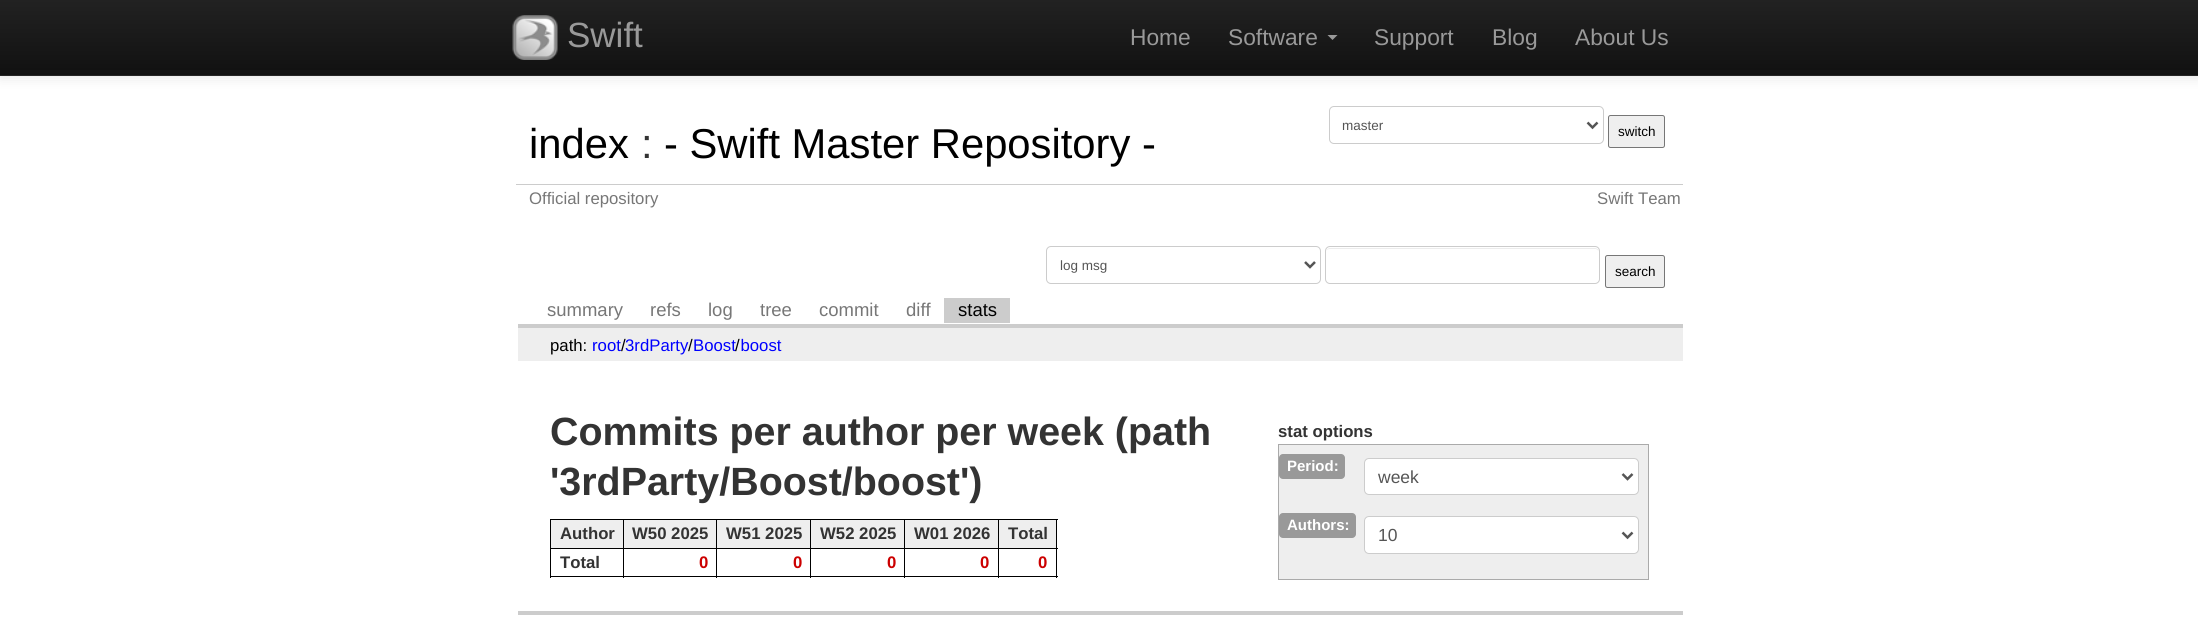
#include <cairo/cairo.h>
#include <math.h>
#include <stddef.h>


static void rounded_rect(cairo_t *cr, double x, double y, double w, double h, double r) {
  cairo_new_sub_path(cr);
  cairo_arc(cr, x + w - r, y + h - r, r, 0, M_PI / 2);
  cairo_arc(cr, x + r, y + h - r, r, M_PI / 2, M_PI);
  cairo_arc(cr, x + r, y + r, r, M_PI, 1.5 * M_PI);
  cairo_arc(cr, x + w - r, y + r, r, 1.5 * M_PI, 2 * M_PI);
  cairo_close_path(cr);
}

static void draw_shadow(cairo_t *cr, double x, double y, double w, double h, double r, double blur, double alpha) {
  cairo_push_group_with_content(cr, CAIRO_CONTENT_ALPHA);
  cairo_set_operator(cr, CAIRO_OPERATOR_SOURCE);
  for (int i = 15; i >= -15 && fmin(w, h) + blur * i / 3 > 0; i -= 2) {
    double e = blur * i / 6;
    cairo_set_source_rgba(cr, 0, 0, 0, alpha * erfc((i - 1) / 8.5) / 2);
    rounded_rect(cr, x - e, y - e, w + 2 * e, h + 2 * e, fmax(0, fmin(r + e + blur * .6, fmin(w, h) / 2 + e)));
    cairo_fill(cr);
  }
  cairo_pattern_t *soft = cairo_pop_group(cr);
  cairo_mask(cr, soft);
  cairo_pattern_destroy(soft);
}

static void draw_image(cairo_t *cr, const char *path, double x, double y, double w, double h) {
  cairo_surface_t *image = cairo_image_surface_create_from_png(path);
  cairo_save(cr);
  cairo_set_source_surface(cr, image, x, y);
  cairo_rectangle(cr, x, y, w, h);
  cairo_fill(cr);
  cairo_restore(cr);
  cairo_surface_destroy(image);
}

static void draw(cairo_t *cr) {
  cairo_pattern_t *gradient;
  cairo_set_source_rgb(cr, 1, 1, 1);
  cairo_paint(cr);
  cairo_set_source_rgb(cr, 0, 0, 0);
  draw_shadow(cr, 0, 1, 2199, 77, 0, 6, 0.1);
  gradient = cairo_pattern_create_linear(1099, 0, 1099, 75);
  cairo_pattern_add_color_stop_rgba(gradient, 0, 34 / 255.0, 34 / 255.0, 34 / 255.0, 1);
  cairo_pattern_add_color_stop_rgba(gradient, 1, 17 / 255.0, 17 / 255.0, 17 / 255.0, 1);
  cairo_set_source(cr, gradient);
  cairo_pattern_destroy(gradient);
  cairo_rectangle(cr, 0, 0, 2198, 75);
  cairo_fill(cr);
  cairo_set_source_rgb(cr, 37 / 255.0, 37 / 255.0, 37 / 255.0);
  cairo_rectangle(cr, 0, 75, 2198, 1);
  cairo_fill(cr);
  draw_image(cr, "images/1.png", 512, 15, 46, 45);
  cairo_set_source_rgb(cr, 153 / 255.0, 153 / 255.0, 153 / 255.0);
  cairo_new_path(cr);
  cairo_move_to(cr, 1327.5, 35);
  cairo_line_to(cr, 1337.5, 35);
  cairo_line_to(cr, 1332.5, 40);
  cairo_close_path(cr);
  cairo_fill(cr);
  rounded_rect(cr, 1329.5, 106.5, 274, 37, 4.5);
  cairo_set_source_rgb(cr, 204 / 255.0, 204 / 255.0, 204 / 255.0);
  cairo_set_line_width(cr, 1);
  cairo_stroke(cr);
  cairo_new_path(cr);
  cairo_move_to(cr, 1587.5, 122.5);
  cairo_line_to(cr, 1592.5, 127.5);
  cairo_line_to(cr, 1597.5, 122.5);
  cairo_set_source_rgb(cr, 85 / 255.0, 85 / 255.0, 85 / 255.0);
  cairo_set_line_width(cr, 2.5);
  cairo_stroke(cr);
  cairo_set_source_rgb(cr, 239 / 255.0, 239 / 255.0, 239 / 255.0);
  rounded_rect(cr, 1608.5, 115.5, 56, 32, 2);
  cairo_fill_preserve(cr);
  cairo_set_source_rgb(cr, 118 / 255.0, 118 / 255.0, 118 / 255.0);
  cairo_set_line_width(cr, 1);
  cairo_stroke(cr);
  cairo_set_source_rgb(cr, 204 / 255.0, 204 / 255.0, 204 / 255.0);
  cairo_rectangle(cr, 516, 184, 1167, 1);
  cairo_fill(cr);
  cairo_rectangle(cr, 518, 324, 1165, 4);
  cairo_fill(cr);
  rounded_rect(cr, 1046.5, 246.5, 274, 37, 4.5);
  cairo_stroke(cr);
  cairo_new_path(cr);
  cairo_move_to(cr, 1305, 262);
  cairo_line_to(cr, 1310, 267);
  cairo_line_to(cr, 1315, 262);
  cairo_set_source_rgb(cr, 85 / 255.0, 85 / 255.0, 85 / 255.0);
  cairo_set_line_width(cr, 2.5);
  cairo_stroke(cr);
  cairo_set_source_rgb(cr, 236 / 255.0, 236 / 255.0, 236 / 255.0);
  cairo_new_path(cr);
  cairo_move_to(cr, 1330, 249);
  cairo_line_to(cr, 1596, 249);
  cairo_line_to(cr, 1599, 251);
  cairo_line_to(cr, 1599, 252);
  cairo_curve_to(cr, 1599, 250, 1597, 248, 1595, 248);
  cairo_line_to(cr, 1330, 248);
  cairo_curve_to(cr, 1328, 248, 1326, 250, 1326, 252);
  cairo_curve_to(cr, 1326, 250, 1328, 249, 1330, 249);
  cairo_close_path(cr);
  cairo_fill(cr);
  rounded_rect(cr, 1325.5, 246.5, 274, 37, 4.5);
  cairo_set_source_rgb(cr, 204 / 255.0, 204 / 255.0, 204 / 255.0);
  cairo_set_line_width(cr, 1);
  cairo_stroke(cr);
  cairo_set_source_rgb(cr, 239 / 255.0, 239 / 255.0, 239 / 255.0);
  rounded_rect(cr, 1605.5, 255.5, 59, 32, 2);
  cairo_fill_preserve(cr);
  cairo_set_source_rgb(cr, 118 / 255.0, 118 / 255.0, 118 / 255.0);
  cairo_stroke(cr);
  cairo_set_source_rgb(cr, 204 / 255.0, 204 / 255.0, 204 / 255.0);
  cairo_rectangle(cr, 944, 298, 66, 25);
  cairo_fill(cr);
  cairo_set_source_rgb(cr, 238 / 255.0, 238 / 255.0, 238 / 255.0);
  cairo_rectangle(cr, 518, 328, 1165, 33);
  cairo_fill(cr);
  cairo_set_source_rgb(cr, 204 / 255.0, 204 / 255.0, 204 / 255.0);
  cairo_rectangle(cr, 518, 611, 1165, 4);
  cairo_fill(cr);
  cairo_set_source_rgb(cr, 238 / 255.0, 238 / 255.0, 238 / 255.0);
  cairo_rectangle(cr, 1279, 445, 369, 134);
  cairo_fill(cr);
  cairo_set_source_rgb(cr, 170 / 255.0, 170 / 255.0, 170 / 255.0);
  cairo_rectangle(cr, 1278, 444, 371, 1);
  cairo_fill(cr);
  cairo_rectangle(cr, 1648, 444, 1, 136);
  cairo_fill(cr);
  cairo_rectangle(cr, 1278, 579, 371, 1);
  cairo_fill(cr);
  cairo_rectangle(cr, 1278, 444, 1, 136);
  cairo_fill(cr);
  cairo_set_source_rgb(cr, 153 / 255.0, 153 / 255.0, 153 / 255.0);
  rounded_rect(cr, 1279, 454, 66, 25, 4);
  cairo_fill(cr);
  cairo_set_source_rgb(cr, 1, 1, 1);
  rounded_rect(cr, 1364.5, 458.5, 274, 36, 4.5);
  cairo_fill_preserve(cr);
  cairo_set_source_rgb(cr, 204 / 255.0, 204 / 255.0, 204 / 255.0);
  cairo_stroke(cr);
  cairo_new_path(cr);
  cairo_move_to(cr, 1622.5, 474);
  cairo_line_to(cr, 1627.5, 479);
  cairo_line_to(cr, 1632.5, 474);
  cairo_set_source_rgb(cr, 85 / 255.0, 85 / 255.0, 85 / 255.0);
  cairo_set_line_width(cr, 2.5);
  cairo_stroke(cr);
  cairo_set_source_rgb(cr, 153 / 255.0, 153 / 255.0, 153 / 255.0);
  rounded_rect(cr, 1279, 513, 77, 25, 4);
  cairo_fill(cr);
  cairo_set_source_rgb(cr, 1, 1, 1);
  rounded_rect(cr, 1364.5, 516.5, 274, 37, 4.5);
  cairo_fill_preserve(cr);
  cairo_set_source_rgb(cr, 204 / 255.0, 204 / 255.0, 204 / 255.0);
  cairo_set_line_width(cr, 1);
  cairo_stroke(cr);
  cairo_new_path(cr);
  cairo_move_to(cr, 1622.5, 532.5);
  cairo_line_to(cr, 1627.5, 537.5);
  cairo_line_to(cr, 1632.5, 532.5);
  cairo_set_source_rgb(cr, 85 / 255.0, 85 / 255.0, 85 / 255.0);
  cairo_set_line_width(cr, 2.5);
  cairo_stroke(cr);
  cairo_set_source_rgb(cr, 0, 0, 0);
  cairo_rectangle(cr, 550, 519, 508, 1);
  cairo_fill(cr);
  cairo_rectangle(cr, 1056, 519, 1, 59);
  cairo_fill(cr);
  cairo_rectangle(cr, 550, 576, 508, 1);
  cairo_fill(cr);
  cairo_rectangle(cr, 550, 519, 1, 59);
  cairo_fill(cr);
  cairo_set_source_rgb(cr, 238 / 255.0, 238 / 255.0, 238 / 255.0);
  cairo_rectangle(cr, 551, 520, 72, 28);
  cairo_fill(cr);
  cairo_rectangle(cr, 624, 520, 186, 28);
  cairo_fill(cr);
  cairo_set_source_rgb(cr, 0, 0, 0);
  cairo_rectangle(cr, 998, 548, 60, 1);
  cairo_fill(cr);
  cairo_rectangle(cr, 998, 548, 1, 30);
  cairo_fill(cr);
  cairo_rectangle(cr, 904, 548, 95, 1);
  cairo_fill(cr);
  cairo_rectangle(cr, 904, 548, 1, 30);
  cairo_fill(cr);
  cairo_rectangle(cr, 810, 548, 95, 1);
  cairo_fill(cr);
  cairo_rectangle(cr, 810, 548, 1, 30);
  cairo_fill(cr);
  cairo_rectangle(cr, 716, 548, 95, 1);
  cairo_fill(cr);
  cairo_rectangle(cr, 716, 548, 1, 30);
  cairo_fill(cr);
  cairo_rectangle(cr, 623, 548, 95, 1);
  cairo_fill(cr);
  cairo_rectangle(cr, 623, 548, 1, 30);
  cairo_fill(cr);
  cairo_rectangle(cr, 550, 548, 74, 1);
  cairo_fill(cr);
  cairo_rectangle(cr, 623, 519, 1, 30);
  cairo_fill(cr);
  cairo_rectangle(cr, 716, 519, 1, 30);
  cairo_fill(cr);
  cairo_set_source_rgb(cr, 238 / 255.0, 238 / 255.0, 238 / 255.0);
  cairo_rectangle(cr, 811, 520, 93, 28);
  cairo_fill(cr);
  cairo_set_source_rgb(cr, 0, 0, 0);
  cairo_rectangle(cr, 810, 519, 1, 30);
  cairo_fill(cr);
  cairo_set_source_rgb(cr, 238 / 255.0, 238 / 255.0, 238 / 255.0);
  cairo_rectangle(cr, 905, 520, 93, 28);
  cairo_fill(cr);
  cairo_set_source_rgb(cr, 0, 0, 0);
  cairo_rectangle(cr, 904, 519, 1, 30);
  cairo_fill(cr);
  cairo_set_source_rgb(cr, 238 / 255.0, 238 / 255.0, 238 / 255.0);
  cairo_rectangle(cr, 999, 520, 57, 28);
  cairo_fill(cr);
  cairo_set_source_rgb(cr, 0, 0, 0);
  cairo_rectangle(cr, 998, 519, 1, 30);
  cairo_fill(cr);
  cairo_select_font_face(cr, "Liberation Sans", CAIRO_FONT_SLANT_NORMAL, CAIRO_FONT_WEIGHT_NORMAL);
  cairo_set_font_size(cr, 35);
  cairo_set_source_rgb(cr, 153 / 255.0, 153 / 255.0, 153 / 255.0);
  cairo_move_to(cr, 567, 47);
  cairo_show_text(cr, "Swift");
  cairo_set_font_size(cr, 22.75);
  cairo_move_to(cr, 1130, 45);
  cairo_show_text(cr, "Home");
  cairo_move_to(cr, 1228, 45);
  cairo_show_text(cr, "Software");
  cairo_move_to(cr, 1374, 45);
  cairo_show_text(cr, "Support");
  cairo_move_to(cr, 1492, 45);
  cairo_show_text(cr, "Blog");
  cairo_move_to(cr, 1575, 45);
  cairo_show_text(cr, "About Us");
  cairo_set_font_size(cr, 41.75);
  cairo_set_source_rgb(cr, 0, 0, 0);
  cairo_move_to(cr, 529, 158);
  cairo_show_text(cr, "index");
  cairo_set_source_rgb(cr, 51 / 255.0, 51 / 255.0, 51 / 255.0);
  cairo_move_to(cr, 641, 158);
  cairo_show_text(cr, ":");
  cairo_set_source_rgb(cr, 0, 0, 0);
  cairo_move_to(cr, 664, 158);
  cairo_show_text(cr, "- Swift Master Repository -");
  cairo_set_font_size(cr, 13.5);
  cairo_set_source_rgb(cr, 85 / 255.0, 85 / 255.0, 85 / 255.0);
  cairo_move_to(cr, 1342, 130);
  cairo_show_text(cr, "master");
  cairo_set_source_rgb(cr, 0, 0, 0);
  cairo_move_to(cr, 1618, 136);
  cairo_show_text(cr, "switch");
  cairo_set_font_size(cr, 16.75);
  cairo_set_source_rgb(cr, 119 / 255.0, 119 / 255.0, 119 / 255.0);
  cairo_move_to(cr, 529, 204);
  cairo_show_text(cr, "Official repository");
  cairo_move_to(cr, 1597, 204);
  cairo_show_text(cr, "Swift Team");
  cairo_set_font_size(cr, 13.5);
  cairo_set_source_rgb(cr, 85 / 255.0, 85 / 255.0, 85 / 255.0);
  cairo_move_to(cr, 1060, 270);
  cairo_show_text(cr, "log msg");
  cairo_set_source_rgb(cr, 0, 0, 0);
  cairo_move_to(cr, 1615, 276);
  cairo_show_text(cr, "search");
  cairo_set_font_size(cr, 18.5);
  cairo_set_source_rgb(cr, 119 / 255.0, 119 / 255.0, 119 / 255.0);
  cairo_move_to(cr, 547, 316);
  cairo_show_text(cr, "summary");
  cairo_move_to(cr, 650, 316);
  cairo_show_text(cr, "refs");
  cairo_move_to(cr, 708, 316);
  cairo_show_text(cr, "log");
  cairo_move_to(cr, 760, 316);
  cairo_show_text(cr, "tree");
  cairo_move_to(cr, 819, 316);
  cairo_show_text(cr, "commit");
  cairo_move_to(cr, 906, 316);
  cairo_show_text(cr, "diff");
  cairo_set_source_rgb(cr, 0, 0, 0);
  cairo_move_to(cr, 958, 316);
  cairo_show_text(cr, "stats");
  cairo_set_font_size(cr, 16.75);
  cairo_move_to(cr, 550, 351);
  cairo_show_text(cr, "path:");
  cairo_set_source_rgb(cr, 0, 0, 1);
  cairo_move_to(cr, 592, 351);
  cairo_show_text(cr, "root");
  cairo_set_source_rgb(cr, 0, 0, 0);
  cairo_move_to(cr, 621, 351);
  cairo_show_text(cr, "/");
  cairo_set_source_rgb(cr, 0, 0, 1);
  cairo_move_to(cr, 625, 351);
  cairo_show_text(cr, "3rdParty Boost boost");
  cairo_set_source_rgb(cr, 0, 0, 0);
  cairo_move_to(cr, 688, 351);
  cairo_show_text(cr, "/");
  cairo_move_to(cr, 735, 351);
  cairo_show_text(cr, "/");
  cairo_select_font_face(cr, "Liberation Sans", CAIRO_FONT_SLANT_NORMAL, CAIRO_FONT_WEIGHT_BOLD);
  cairo_set_font_size(cr, 39.4);
  cairo_set_source_rgb(cr, 51 / 255.0, 51 / 255.0, 51 / 255.0);
  cairo_move_to(cr, 550, 445);
  cairo_show_text(cr, "Commits per author per week (path");
  cairo_move_to(cr, 550, 495);
  cairo_show_text(cr, "'3rdParty/Boost/boost')");
  cairo_set_font_size(cr, 16.75);
  cairo_move_to(cr, 1278, 437);
  cairo_show_text(cr, "stat options");
  cairo_set_font_size(cr, 15);
  cairo_set_source_rgb(cr, 1, 1, 1);
  cairo_move_to(cr, 1287, 471);
  cairo_show_text(cr, "Period:");
  cairo_select_font_face(cr, "Liberation Sans", CAIRO_FONT_SLANT_NORMAL, CAIRO_FONT_WEIGHT_NORMAL);
  cairo_set_font_size(cr, 17.5);
  cairo_set_source_rgb(cr, 85 / 255.0, 85 / 255.0, 85 / 255.0);
  cairo_move_to(cr, 1378, 483);
  cairo_show_text(cr, "week");
  cairo_select_font_face(cr, "Liberation Sans", CAIRO_FONT_SLANT_NORMAL, CAIRO_FONT_WEIGHT_BOLD);
  cairo_set_font_size(cr, 15);
  cairo_set_source_rgb(cr, 1, 1, 1);
  cairo_move_to(cr, 1287, 530);
  cairo_show_text(cr, "Authors:");
  cairo_select_font_face(cr, "Liberation Sans", CAIRO_FONT_SLANT_NORMAL, CAIRO_FONT_WEIGHT_NORMAL);
  cairo_set_font_size(cr, 17.5);
  cairo_set_source_rgb(cr, 85 / 255.0, 85 / 255.0, 85 / 255.0);
  cairo_move_to(cr, 1378, 541);
  cairo_show_text(cr, "10");
  cairo_select_font_face(cr, "Liberation Sans", CAIRO_FONT_SLANT_NORMAL, CAIRO_FONT_WEIGHT_BOLD);
  cairo_set_font_size(cr, 16.75);
  cairo_set_source_rgb(cr, 51 / 255.0, 51 / 255.0, 51 / 255.0);
  cairo_move_to(cr, 560, 539);
  cairo_show_text(cr, "Author");
  cairo_move_to(cr, 632, 539);
  cairo_show_text(cr, "W50 2025");
  cairo_move_to(cr, 726, 539);
  cairo_show_text(cr, "W51 2025");
  cairo_move_to(cr, 820, 539);
  cairo_show_text(cr, "W52 2025");
  cairo_move_to(cr, 914, 539);
  cairo_show_text(cr, "W01 2026");
  cairo_move_to(cr, 1008, 539);
  cairo_show_text(cr, "Total");
  cairo_move_to(cr, 560, 568);
  cairo_show_text(cr, "Total");
  cairo_set_source_rgb(cr, 204 / 255.0, 0, 0);
  cairo_move_to(cr, 699, 568);
  cairo_show_text(cr, "0");
  cairo_move_to(cr, 793, 568);
  cairo_show_text(cr, "0");
  cairo_move_to(cr, 887, 568);
  cairo_show_text(cr, "0");
  cairo_move_to(cr, 980, 568);
  cairo_show_text(cr, "0");
  cairo_move_to(cr, 1038, 568);
  cairo_show_text(cr, "0");
}

int main(void) {
  cairo_surface_t *surface = cairo_image_surface_create(CAIRO_FORMAT_RGB24, 2198, 633);
  cairo_t *cr = cairo_create(surface);
  cairo_font_options_t *options = cairo_font_options_create();
  cairo_font_options_set_hint_metrics(options, CAIRO_HINT_METRICS_OFF);
  cairo_font_options_set_hint_style(options, CAIRO_HINT_STYLE_NONE);
  cairo_set_font_options(cr, options);
  cairo_set_miter_limit(cr, 4);
  draw(cr);
  cairo_surface_write_to_png(surface, "out.png");
  cairo_font_options_destroy(options);
  cairo_destroy(cr);
  cairo_surface_destroy(surface);
  return 0;
}
